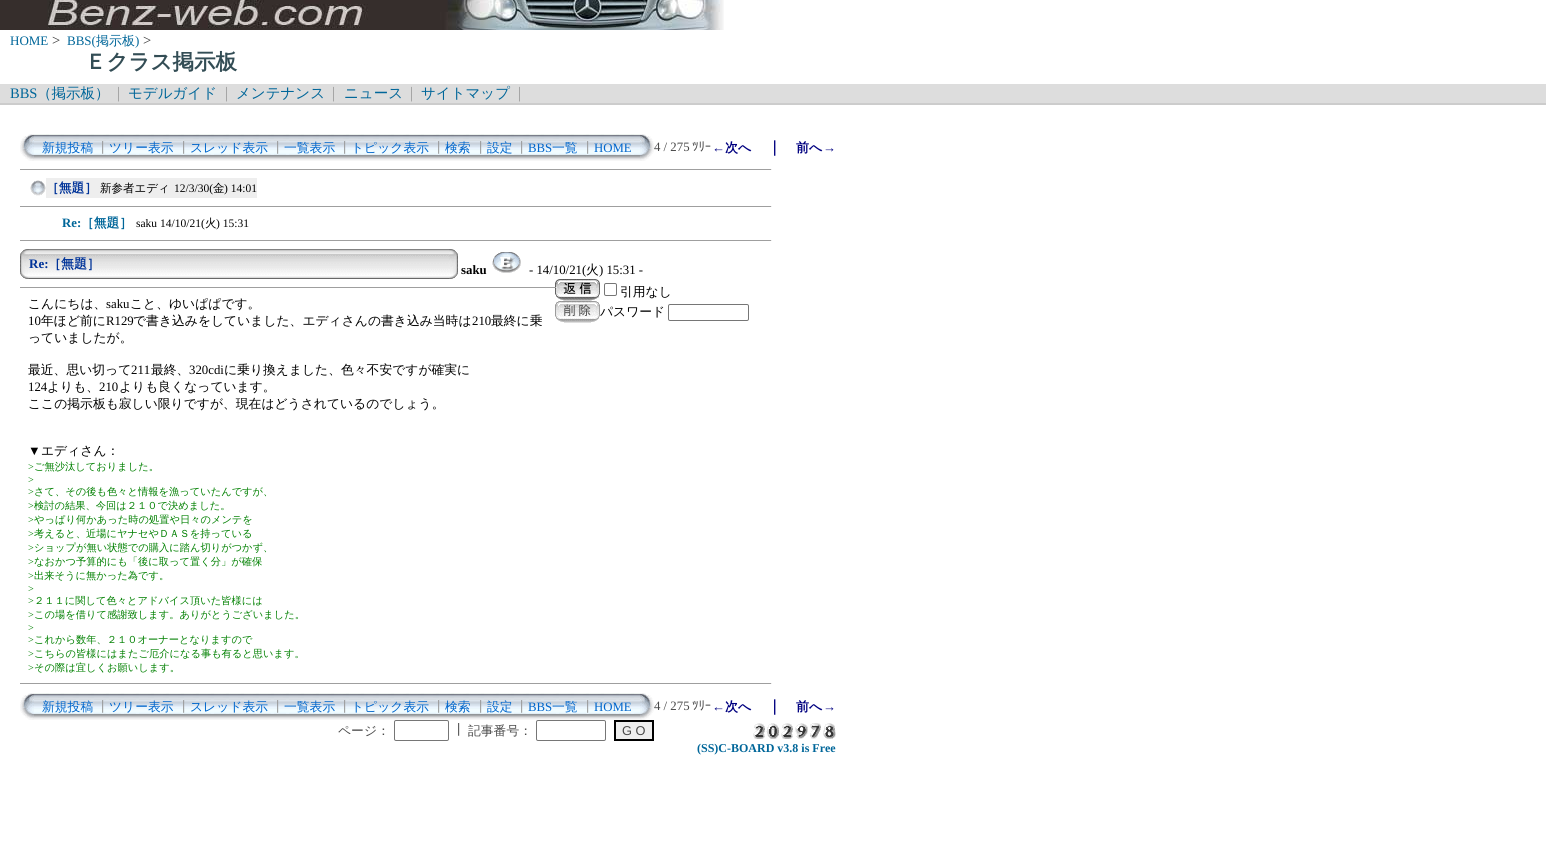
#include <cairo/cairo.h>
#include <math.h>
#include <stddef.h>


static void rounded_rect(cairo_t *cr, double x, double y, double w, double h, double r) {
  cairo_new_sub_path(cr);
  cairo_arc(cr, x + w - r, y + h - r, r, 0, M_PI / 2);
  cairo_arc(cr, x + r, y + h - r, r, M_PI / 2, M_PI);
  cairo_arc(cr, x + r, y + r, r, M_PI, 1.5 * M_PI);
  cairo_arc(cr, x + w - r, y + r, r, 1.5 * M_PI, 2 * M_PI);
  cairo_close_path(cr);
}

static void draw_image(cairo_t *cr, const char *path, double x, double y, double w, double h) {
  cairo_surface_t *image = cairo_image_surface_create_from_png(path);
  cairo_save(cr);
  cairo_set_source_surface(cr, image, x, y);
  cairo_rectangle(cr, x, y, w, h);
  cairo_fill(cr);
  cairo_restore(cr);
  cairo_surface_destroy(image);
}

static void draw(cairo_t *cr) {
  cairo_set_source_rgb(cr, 1, 1, 1);
  cairo_paint(cr);
  draw_image(cr, "images/1.png", 0, 0, 724, 30);
  cairo_set_source_rgb(cr, 204 / 255.0, 204 / 255.0, 204 / 255.0);
  cairo_rectangle(cr, 0, 103, 1546, 2);
  cairo_fill(cr);
  cairo_set_source_rgb(cr, 221 / 255.0, 221 / 255.0, 221 / 255.0);
  cairo_rectangle(cr, 0, 84, 1546, 19);
  cairo_fill(cr);
  draw_image(cr, "images/2.png", 20, 134, 14, 27);
  draw_image(cr, "images/3.png", 34, 134, 606, 27);
  draw_image(cr, "images/4.png", 640, 134, 14, 27);
  cairo_set_source_rgb(cr, 159 / 255.0, 159 / 255.0, 159 / 255.0);
  cairo_rectangle(cr, 20, 169, 752, 1);
  cairo_fill(cr);
  cairo_set_source_rgb(cr, 238 / 255.0, 238 / 255.0, 238 / 255.0);
  cairo_rectangle(cr, 771, 169, 1, 1);
  cairo_fill(cr);
  draw_image(cr, "images/5.png", 30, 180, 16, 16);
  cairo_rectangle(cr, 46, 178, 211, 20);
  cairo_fill(cr);
  cairo_set_source_rgb(cr, 159 / 255.0, 159 / 255.0, 159 / 255.0);
  cairo_rectangle(cr, 20, 206, 752, 1);
  cairo_fill(cr);
  cairo_set_source_rgb(cr, 238 / 255.0, 238 / 255.0, 238 / 255.0);
  cairo_rectangle(cr, 771, 206, 1, 1);
  cairo_fill(cr);
  cairo_set_source_rgb(cr, 159 / 255.0, 159 / 255.0, 159 / 255.0);
  cairo_rectangle(cr, 20, 240, 752, 1);
  cairo_fill(cr);
  cairo_set_source_rgb(cr, 238 / 255.0, 238 / 255.0, 238 / 255.0);
  cairo_rectangle(cr, 771, 240, 1, 1);
  cairo_fill(cr);
  draw_image(cr, "images/6.png", 20, 249, 9, 30);
  draw_image(cr, "images/7.png", 29, 249, 420, 30);
  draw_image(cr, "images/8.png", 449, 249, 9, 30);
  draw_image(cr, "images/9.png", 492, 252, 29, 21);
  draw_image(cr, "images/10.png", 555, 279, 45, 22);
  cairo_set_source_rgb(cr, 159 / 255.0, 159 / 255.0, 159 / 255.0);
  cairo_rectangle(cr, 20, 287, 537, 1);
  cairo_fill(cr);
  cairo_set_source_rgb(cr, 238 / 255.0, 238 / 255.0, 238 / 255.0);
  cairo_rectangle(cr, 556, 287, 1, 1);
  cairo_fill(cr);
  rounded_rect(cr, 604.5, 283.5, 12, 12, 1.5);
  cairo_set_source_rgb(cr, 118 / 255.0, 118 / 255.0, 118 / 255.0);
  cairo_set_line_width(cr, 1);
  cairo_stroke(cr);
  draw_image(cr, "images/11.png", 555, 301, 45, 22);
  rounded_rect(cr, 668.5, 304.5, 80, 16, 1.5);
  cairo_stroke(cr);
  cairo_set_source_rgb(cr, 159 / 255.0, 159 / 255.0, 159 / 255.0);
  cairo_rectangle(cr, 20, 683, 752, 1);
  cairo_fill(cr);
  cairo_set_source_rgb(cr, 238 / 255.0, 238 / 255.0, 238 / 255.0);
  cairo_rectangle(cr, 771, 683, 1, 1);
  cairo_fill(cr);
  draw_image(cr, "images/2.png", 20, 693, 14, 27);
  draw_image(cr, "images/3.png", 34, 693, 606, 27);
  draw_image(cr, "images/4.png", 640, 693, 14, 27);
  rounded_rect(cr, 394.5, 720.5, 54, 20, 1.5);
  cairo_set_source_rgb(cr, 118 / 255.0, 118 / 255.0, 118 / 255.0);
  cairo_stroke(cr);
  rounded_rect(cr, 536.5, 720.5, 69, 20, 1.5);
  cairo_stroke(cr);
  cairo_set_source_rgb(cr, 238 / 255.0, 238 / 255.0, 238 / 255.0);
  cairo_rectangle(cr, 615, 721, 38, 19);
  cairo_fill_preserve(cr);
  cairo_set_source_rgb(cr, 0, 0, 0);
  cairo_set_line_width(cr, 2);
  cairo_stroke(cr);
  draw_image(cr, "images/12.png", 753, 723, 12, 16);
  draw_image(cr, "images/13.png", 766, 723, 13, 16);
  draw_image(cr, "images/12.png", 781, 723, 12, 16);
  draw_image(cr, "images/14.png", 795, 723, 13, 16);
  draw_image(cr, "images/15.png", 810, 723, 11, 16);
  draw_image(cr, "images/16.png", 823, 723, 13, 16);
  cairo_select_font_face(cr, "Liberation Serif", CAIRO_FONT_SLANT_NORMAL, CAIRO_FONT_WEIGHT_NORMAL);
  cairo_set_font_size(cr, 13);
  cairo_set_source_rgb(cr, 0, 102 / 255.0, 153 / 255.0);
  cairo_move_to(cr, 10, 45);
  cairo_show_text(cr, "HOME");
  cairo_set_font_size(cr, 14.5);
  cairo_set_source_rgb(cr, 51 / 255.0, 51 / 255.0, 51 / 255.0);
  cairo_move_to(cr, 52, 45);
  cairo_show_text(cr, ">");
  cairo_set_font_size(cr, 13);
  cairo_set_source_rgb(cr, 0, 102 / 255.0, 153 / 255.0);
  cairo_move_to(cr, 67, 45);
  cairo_show_text(cr, "BBS(");
  cairo_select_font_face(cr, "WenQuanYi Zen Hei Medium", CAIRO_FONT_SLANT_NORMAL, CAIRO_FONT_WEIGHT_NORMAL);
  cairo_move_to(cr, 96, 45);
  cairo_show_text(cr, "掲示板");
  cairo_select_font_face(cr, "Liberation Serif", CAIRO_FONT_SLANT_NORMAL, CAIRO_FONT_WEIGHT_NORMAL);
  cairo_move_to(cr, 135, 45);
  cairo_show_text(cr, ")");
  cairo_set_font_size(cr, 14.5);
  cairo_set_source_rgb(cr, 51 / 255.0, 51 / 255.0, 51 / 255.0);
  cairo_move_to(cr, 143, 45);
  cairo_show_text(cr, ">");
  cairo_select_font_face(cr, "WenQuanYi Zen Hei", CAIRO_FONT_SLANT_NORMAL, CAIRO_FONT_WEIGHT_BOLD);
  cairo_set_font_size(cr, 21.5);
  cairo_set_source_rgb(cr, 51 / 255.0, 77 / 255.0, 85 / 255.0);
  cairo_move_to(cr, 85, 69);
  cairo_show_text(cr, "Ｅクラス掲示板");
  cairo_select_font_face(cr, "Liberation Serif", CAIRO_FONT_SLANT_NORMAL, CAIRO_FONT_WEIGHT_NORMAL);
  cairo_set_font_size(cr, 14.5);
  cairo_set_source_rgb(cr, 0, 102 / 255.0, 153 / 255.0);
  cairo_move_to(cr, 10, 98);
  cairo_show_text(cr, "BBS");
  cairo_select_font_face(cr, "WenQuanYi Zen Hei Medium", CAIRO_FONT_SLANT_NORMAL, CAIRO_FONT_WEIGHT_NORMAL);
  cairo_move_to(cr, 37, 98);
  cairo_show_text(cr, "（掲示板）");
  cairo_select_font_face(cr, "Liberation Serif", CAIRO_FONT_SLANT_NORMAL, CAIRO_FONT_WEIGHT_NORMAL);
  cairo_set_font_size(cr, 16);
  cairo_set_source_rgb(cr, 153 / 255.0, 153 / 255.0, 153 / 255.0);
  cairo_move_to(cr, 117, 98);
  cairo_show_text(cr, "|");
  cairo_select_font_face(cr, "WenQuanYi Zen Hei Medium", CAIRO_FONT_SLANT_NORMAL, CAIRO_FONT_WEIGHT_NORMAL);
  cairo_set_font_size(cr, 14.5);
  cairo_set_source_rgb(cr, 0, 102 / 255.0, 153 / 255.0);
  cairo_move_to(cr, 128, 98);
  cairo_show_text(cr, "モデルガイド");
  cairo_select_font_face(cr, "Liberation Serif", CAIRO_FONT_SLANT_NORMAL, CAIRO_FONT_WEIGHT_NORMAL);
  cairo_set_font_size(cr, 16);
  cairo_set_source_rgb(cr, 153 / 255.0, 153 / 255.0, 153 / 255.0);
  cairo_move_to(cr, 225, 98);
  cairo_show_text(cr, "|");
  cairo_select_font_face(cr, "WenQuanYi Zen Hei Medium", CAIRO_FONT_SLANT_NORMAL, CAIRO_FONT_WEIGHT_NORMAL);
  cairo_set_font_size(cr, 14.5);
  cairo_set_source_rgb(cr, 0, 102 / 255.0, 153 / 255.0);
  cairo_move_to(cr, 236, 98);
  cairo_show_text(cr, "メンテナンス");
  cairo_select_font_face(cr, "Liberation Serif", CAIRO_FONT_SLANT_NORMAL, CAIRO_FONT_WEIGHT_NORMAL);
  cairo_set_font_size(cr, 16);
  cairo_set_source_rgb(cr, 153 / 255.0, 153 / 255.0, 153 / 255.0);
  cairo_move_to(cr, 332, 98);
  cairo_show_text(cr, "|");
  cairo_select_font_face(cr, "WenQuanYi Zen Hei Medium", CAIRO_FONT_SLANT_NORMAL, CAIRO_FONT_WEIGHT_NORMAL);
  cairo_set_font_size(cr, 14.5);
  cairo_set_source_rgb(cr, 0, 102 / 255.0, 153 / 255.0);
  cairo_move_to(cr, 344, 98);
  cairo_show_text(cr, "ニュース");
  cairo_select_font_face(cr, "Liberation Serif", CAIRO_FONT_SLANT_NORMAL, CAIRO_FONT_WEIGHT_NORMAL);
  cairo_set_font_size(cr, 16);
  cairo_set_source_rgb(cr, 153 / 255.0, 153 / 255.0, 153 / 255.0);
  cairo_move_to(cr, 410, 98);
  cairo_show_text(cr, "|");
  cairo_select_font_face(cr, "WenQuanYi Zen Hei Medium", CAIRO_FONT_SLANT_NORMAL, CAIRO_FONT_WEIGHT_NORMAL);
  cairo_set_font_size(cr, 14.5);
  cairo_set_source_rgb(cr, 0, 102 / 255.0, 153 / 255.0);
  cairo_move_to(cr, 421, 98);
  cairo_show_text(cr, "サイトマップ");
  cairo_select_font_face(cr, "Liberation Serif", CAIRO_FONT_SLANT_NORMAL, CAIRO_FONT_WEIGHT_NORMAL);
  cairo_set_font_size(cr, 16);
  cairo_set_source_rgb(cr, 153 / 255.0, 153 / 255.0, 153 / 255.0);
  cairo_move_to(cr, 518, 98);
  cairo_show_text(cr, "|");
  cairo_select_font_face(cr, "WenQuanYi Zen Hei Medium", CAIRO_FONT_SLANT_NORMAL, CAIRO_FONT_WEIGHT_NORMAL);
  cairo_set_font_size(cr, 12.8);
  cairo_set_source_rgb(cr, 0, 102 / 255.0, 204 / 255.0);
  cairo_move_to(cr, 42, 152);
  cairo_show_text(cr, "新規投稿");
  cairo_set_source_rgb(cr, 153 / 255.0, 153 / 255.0, 153 / 255.0);
  cairo_move_to(cr, 96, 152);
  cairo_show_text(cr, "┃");
  cairo_set_source_rgb(cr, 0, 102 / 255.0, 204 / 255.0);
  cairo_move_to(cr, 109, 152);
  cairo_show_text(cr, "ツリー表示");
  cairo_set_source_rgb(cr, 153 / 255.0, 153 / 255.0, 153 / 255.0);
  cairo_move_to(cr, 177, 152);
  cairo_show_text(cr, "┃");
  cairo_set_source_rgb(cr, 0, 102 / 255.0, 204 / 255.0);
  cairo_move_to(cr, 190, 152);
  cairo_show_text(cr, "スレッド表示");
  cairo_set_source_rgb(cr, 153 / 255.0, 153 / 255.0, 153 / 255.0);
  cairo_move_to(cr, 271, 152);
  cairo_show_text(cr, "┃");
  cairo_set_source_rgb(cr, 0, 102 / 255.0, 204 / 255.0);
  cairo_move_to(cr, 284, 152);
  cairo_show_text(cr, "一覧表示");
  cairo_set_source_rgb(cr, 153 / 255.0, 153 / 255.0, 153 / 255.0);
  cairo_move_to(cr, 338, 152);
  cairo_show_text(cr, "┃");
  cairo_set_source_rgb(cr, 0, 102 / 255.0, 204 / 255.0);
  cairo_move_to(cr, 351, 152);
  cairo_show_text(cr, "トピック表示");
  cairo_set_source_rgb(cr, 153 / 255.0, 153 / 255.0, 153 / 255.0);
  cairo_move_to(cr, 432, 152);
  cairo_show_text(cr, "┃");
  cairo_set_source_rgb(cr, 0, 102 / 255.0, 204 / 255.0);
  cairo_move_to(cr, 445, 152);
  cairo_show_text(cr, "検索");
  cairo_set_source_rgb(cr, 153 / 255.0, 153 / 255.0, 153 / 255.0);
  cairo_move_to(cr, 474, 152);
  cairo_show_text(cr, "┃");
  cairo_set_source_rgb(cr, 0, 102 / 255.0, 204 / 255.0);
  cairo_move_to(cr, 487, 152);
  cairo_show_text(cr, "設定");
  cairo_set_source_rgb(cr, 153 / 255.0, 153 / 255.0, 153 / 255.0);
  cairo_move_to(cr, 515, 152);
  cairo_show_text(cr, "┃");
  cairo_select_font_face(cr, "Liberation Serif", CAIRO_FONT_SLANT_NORMAL, CAIRO_FONT_WEIGHT_NORMAL);
  cairo_set_source_rgb(cr, 0, 102 / 255.0, 204 / 255.0);
  cairo_move_to(cr, 528, 152);
  cairo_show_text(cr, "BBS");
  cairo_select_font_face(cr, "WenQuanYi Zen Hei Medium", CAIRO_FONT_SLANT_NORMAL, CAIRO_FONT_WEIGHT_NORMAL);
  cairo_move_to(cr, 552, 152);
  cairo_show_text(cr, "一覧");
  cairo_set_source_rgb(cr, 153 / 255.0, 153 / 255.0, 153 / 255.0);
  cairo_move_to(cr, 581, 152);
  cairo_show_text(cr, "┃");
  cairo_select_font_face(cr, "Liberation Serif", CAIRO_FONT_SLANT_NORMAL, CAIRO_FONT_WEIGHT_NORMAL);
  cairo_set_source_rgb(cr, 0, 102 / 255.0, 204 / 255.0);
  cairo_move_to(cr, 594, 152);
  cairo_show_text(cr, "HOME");
  cairo_set_source_rgb(cr, 73 / 255.0, 73 / 255.0, 73 / 255.0);
  cairo_move_to(cr, 654, 151);
  cairo_show_text(cr, "4 / 275");
  cairo_select_font_face(cr, "IPAPGothic", CAIRO_FONT_SLANT_NORMAL, CAIRO_FONT_WEIGHT_NORMAL);
  cairo_move_to(cr, 692, 151);
  cairo_show_text(cr, "ﾂﾘｰ");
  cairo_select_font_face(cr, "Liberation Serif", CAIRO_FONT_SLANT_NORMAL, CAIRO_FONT_WEIGHT_BOLD);
  cairo_set_font_size(cr, 13);
  cairo_set_source_rgb(cr, 0, 0, 128 / 255.0);
  cairo_move_to(cr, 712, 152);
  cairo_show_text(cr, "←");
  cairo_select_font_face(cr, "WenQuanYi Zen Hei", CAIRO_FONT_SLANT_NORMAL, CAIRO_FONT_WEIGHT_BOLD);
  cairo_move_to(cr, 725, 152);
  cairo_show_text(cr, "次へ");
  cairo_set_font_size(cr, 15);
  cairo_move_to(cr, 767, 152);
  cairo_show_text(cr, "｜");
  cairo_set_font_size(cr, 13);
  cairo_move_to(cr, 796, 152);
  cairo_show_text(cr, "前へ");
  cairo_select_font_face(cr, "Liberation Serif", CAIRO_FONT_SLANT_NORMAL, CAIRO_FONT_WEIGHT_BOLD);
  cairo_move_to(cr, 823, 152);
  cairo_show_text(cr, "→");
  cairo_select_font_face(cr, "WenQuanYi Zen Hei", CAIRO_FONT_SLANT_NORMAL, CAIRO_FONT_WEIGHT_BOLD);
  cairo_set_font_size(cr, 12.8);
  cairo_set_source_rgb(cr, 0, 51 / 255.0, 153 / 255.0);
  cairo_move_to(cr, 46, 192);
  cairo_show_text(cr, "［無題］");
  cairo_select_font_face(cr, "WenQuanYi Zen Hei Medium", CAIRO_FONT_SLANT_NORMAL, CAIRO_FONT_WEIGHT_NORMAL);
  cairo_set_font_size(cr, 11.5);
  cairo_set_source_rgb(cr, 0, 0, 0);
  cairo_move_to(cr, 100, 192);
  cairo_show_text(cr, "新参者エディ");
  cairo_select_font_face(cr, "Liberation Serif", CAIRO_FONT_SLANT_NORMAL, CAIRO_FONT_WEIGHT_NORMAL);
  cairo_move_to(cr, 174, 192);
  cairo_show_text(cr, "12/3/30(");
  cairo_select_font_face(cr, "WenQuanYi Zen Hei Medium", CAIRO_FONT_SLANT_NORMAL, CAIRO_FONT_WEIGHT_NORMAL);
  cairo_move_to(cr, 213, 192);
  cairo_show_text(cr, "金");
  cairo_select_font_face(cr, "Liberation Serif", CAIRO_FONT_SLANT_NORMAL, CAIRO_FONT_WEIGHT_NORMAL);
  cairo_move_to(cr, 224, 192);
  cairo_show_text(cr, ") 14:01");
  cairo_select_font_face(cr, "Liberation Serif", CAIRO_FONT_SLANT_NORMAL, CAIRO_FONT_WEIGHT_BOLD);
  cairo_set_font_size(cr, 12.8);
  cairo_set_source_rgb(cr, 0, 102 / 255.0, 153 / 255.0);
  cairo_move_to(cr, 62, 227);
  cairo_show_text(cr, "Re:");
  cairo_select_font_face(cr, "WenQuanYi Zen Hei", CAIRO_FONT_SLANT_NORMAL, CAIRO_FONT_WEIGHT_BOLD);
  cairo_move_to(cr, 81, 227);
  cairo_show_text(cr, "［無題］");
  cairo_select_font_face(cr, "Liberation Serif", CAIRO_FONT_SLANT_NORMAL, CAIRO_FONT_WEIGHT_NORMAL);
  cairo_set_font_size(cr, 11.5);
  cairo_set_source_rgb(cr, 0, 0, 0);
  cairo_move_to(cr, 136, 227);
  cairo_show_text(cr, "saku");
  cairo_move_to(cr, 160, 227);
  cairo_show_text(cr, "14/10/21(");
  cairo_select_font_face(cr, "WenQuanYi Zen Hei Medium", CAIRO_FONT_SLANT_NORMAL, CAIRO_FONT_WEIGHT_NORMAL);
  cairo_move_to(cr, 205, 227);
  cairo_show_text(cr, "火");
  cairo_select_font_face(cr, "Liberation Serif", CAIRO_FONT_SLANT_NORMAL, CAIRO_FONT_WEIGHT_NORMAL);
  cairo_move_to(cr, 216, 227);
  cairo_show_text(cr, ") 15:31");
  cairo_select_font_face(cr, "Liberation Serif", CAIRO_FONT_SLANT_NORMAL, CAIRO_FONT_WEIGHT_BOLD);
  cairo_set_font_size(cr, 13);
  cairo_set_source_rgb(cr, 0, 51 / 255.0, 153 / 255.0);
  cairo_move_to(cr, 29, 268);
  cairo_show_text(cr, "Re:");
  cairo_select_font_face(cr, "WenQuanYi Zen Hei", CAIRO_FONT_SLANT_NORMAL, CAIRO_FONT_WEIGHT_BOLD);
  cairo_move_to(cr, 48, 268);
  cairo_show_text(cr, "［無題］");
  cairo_select_font_face(cr, "Liberation Serif", CAIRO_FONT_SLANT_NORMAL, CAIRO_FONT_WEIGHT_BOLD);
  cairo_set_font_size(cr, 12.8);
  cairo_set_source_rgb(cr, 0, 0, 0);
  cairo_move_to(cr, 461, 274);
  cairo_show_text(cr, "saku");
  cairo_select_font_face(cr, "Liberation Serif", CAIRO_FONT_SLANT_NORMAL, CAIRO_FONT_WEIGHT_NORMAL);
  cairo_move_to(cr, 529, 274);
  cairo_show_text(cr, "- 14/10/21(");
  cairo_select_font_face(cr, "WenQuanYi Zen Hei Medium", CAIRO_FONT_SLANT_NORMAL, CAIRO_FONT_WEIGHT_NORMAL);
  cairo_move_to(cr, 586, 274);
  cairo_show_text(cr, "火");
  cairo_select_font_face(cr, "Liberation Serif", CAIRO_FONT_SLANT_NORMAL, CAIRO_FONT_WEIGHT_NORMAL);
  cairo_move_to(cr, 599, 274);
  cairo_show_text(cr, ") 15:31 -");
  cairo_select_font_face(cr, "WenQuanYi Zen Hei Medium", CAIRO_FONT_SLANT_NORMAL, CAIRO_FONT_WEIGHT_NORMAL);
  cairo_move_to(cr, 28, 308);
  cairo_show_text(cr, "こんにちは、");
  cairo_select_font_face(cr, "Liberation Serif", CAIRO_FONT_SLANT_NORMAL, CAIRO_FONT_WEIGHT_NORMAL);
  cairo_move_to(cr, 106, 308);
  cairo_show_text(cr, "saku");
  cairo_select_font_face(cr, "WenQuanYi Zen Hei Medium", CAIRO_FONT_SLANT_NORMAL, CAIRO_FONT_WEIGHT_NORMAL);
  cairo_move_to(cr, 130, 308);
  cairo_show_text(cr, "こと、ゆいぱぱです。");
  cairo_select_font_face(cr, "Liberation Serif", CAIRO_FONT_SLANT_NORMAL, CAIRO_FONT_WEIGHT_NORMAL);
  cairo_move_to(cr, 28, 325);
  cairo_show_text(cr, "10");
  cairo_select_font_face(cr, "WenQuanYi Zen Hei Medium", CAIRO_FONT_SLANT_NORMAL, CAIRO_FONT_WEIGHT_NORMAL);
  cairo_move_to(cr, 41, 325);
  cairo_show_text(cr, "年ほど前に");
  cairo_select_font_face(cr, "Liberation Serif", CAIRO_FONT_SLANT_NORMAL, CAIRO_FONT_WEIGHT_NORMAL);
  cairo_move_to(cr, 106, 325);
  cairo_show_text(cr, "R129");
  cairo_select_font_face(cr, "WenQuanYi Zen Hei Medium", CAIRO_FONT_SLANT_NORMAL, CAIRO_FONT_WEIGHT_NORMAL);
  cairo_move_to(cr, 133, 325);
  cairo_show_text(cr, "で書き込みをしていました、エディさんの書き込み当時は");
  cairo_select_font_face(cr, "Liberation Serif", CAIRO_FONT_SLANT_NORMAL, CAIRO_FONT_WEIGHT_NORMAL);
  cairo_move_to(cr, 472, 325);
  cairo_show_text(cr, "210");
  cairo_select_font_face(cr, "WenQuanYi Zen Hei Medium", CAIRO_FONT_SLANT_NORMAL, CAIRO_FONT_WEIGHT_NORMAL);
  cairo_move_to(cr, 491, 325);
  cairo_show_text(cr, "最終に乗");
  cairo_move_to(cr, 28, 342);
  cairo_show_text(cr, "っていましたが。");
  cairo_move_to(cr, 28, 374);
  cairo_show_text(cr, "最近、思い切って");
  cairo_select_font_face(cr, "Liberation Serif", CAIRO_FONT_SLANT_NORMAL, CAIRO_FONT_WEIGHT_NORMAL);
  cairo_move_to(cr, 131, 374);
  cairo_show_text(cr, "211");
  cairo_select_font_face(cr, "WenQuanYi Zen Hei Medium", CAIRO_FONT_SLANT_NORMAL, CAIRO_FONT_WEIGHT_NORMAL);
  cairo_move_to(cr, 151, 374);
  cairo_show_text(cr, "最終、");
  cairo_select_font_face(cr, "Liberation Serif", CAIRO_FONT_SLANT_NORMAL, CAIRO_FONT_WEIGHT_NORMAL);
  cairo_move_to(cr, 189, 374);
  cairo_show_text(cr, "320cdi");
  cairo_select_font_face(cr, "WenQuanYi Zen Hei Medium", CAIRO_FONT_SLANT_NORMAL, CAIRO_FONT_WEIGHT_NORMAL);
  cairo_move_to(cr, 224, 374);
  cairo_show_text(cr, "に乗り換えました、色々不安ですが確実に");
  cairo_select_font_face(cr, "Liberation Serif", CAIRO_FONT_SLANT_NORMAL, CAIRO_FONT_WEIGHT_NORMAL);
  cairo_move_to(cr, 28, 391);
  cairo_show_text(cr, "124");
  cairo_select_font_face(cr, "WenQuanYi Zen Hei Medium", CAIRO_FONT_SLANT_NORMAL, CAIRO_FONT_WEIGHT_NORMAL);
  cairo_move_to(cr, 47, 391);
  cairo_show_text(cr, "よりも、");
  cairo_select_font_face(cr, "Liberation Serif", CAIRO_FONT_SLANT_NORMAL, CAIRO_FONT_WEIGHT_NORMAL);
  cairo_move_to(cr, 99, 391);
  cairo_show_text(cr, "210");
  cairo_select_font_face(cr, "WenQuanYi Zen Hei Medium", CAIRO_FONT_SLANT_NORMAL, CAIRO_FONT_WEIGHT_NORMAL);
  cairo_move_to(cr, 119, 391);
  cairo_show_text(cr, "よりも良くなっています。");
  cairo_move_to(cr, 28, 408);
  cairo_show_text(cr, "ここの掲示板も寂しい限りですが、現在はどうされているのでしょう。");
  cairo_select_font_face(cr, "Liberation Serif", CAIRO_FONT_SLANT_NORMAL, CAIRO_FONT_WEIGHT_NORMAL);
  cairo_move_to(cr, 28, 455);
  cairo_show_text(cr, "▼");
  cairo_select_font_face(cr, "WenQuanYi Zen Hei Medium", CAIRO_FONT_SLANT_NORMAL, CAIRO_FONT_WEIGHT_NORMAL);
  cairo_move_to(cr, 41, 455);
  cairo_show_text(cr, "エディさん：");
  cairo_select_font_face(cr, "Liberation Serif", CAIRO_FONT_SLANT_NORMAL, CAIRO_FONT_WEIGHT_NORMAL);
  cairo_set_font_size(cr, 10.25);
  cairo_set_source_rgb(cr, 0, 128 / 255.0, 0);
  cairo_move_to(cr, 28, 470);
  cairo_show_text(cr, ">");
  cairo_select_font_face(cr, "WenQuanYi Zen Hei Medium", CAIRO_FONT_SLANT_NORMAL, CAIRO_FONT_WEIGHT_NORMAL);
  cairo_move_to(cr, 34, 470);
  cairo_show_text(cr, "ご無沙汰しておりました。");
  cairo_select_font_face(cr, "Liberation Serif", CAIRO_FONT_SLANT_NORMAL, CAIRO_FONT_WEIGHT_NORMAL);
  cairo_move_to(cr, 28, 483);
  cairo_show_text(cr, ">");
  cairo_move_to(cr, 28, 495);
  cairo_show_text(cr, ">");
  cairo_select_font_face(cr, "WenQuanYi Zen Hei Medium", CAIRO_FONT_SLANT_NORMAL, CAIRO_FONT_WEIGHT_NORMAL);
  cairo_move_to(cr, 34, 495);
  cairo_show_text(cr, "さて、その後も色々と情報を漁っていたんですが、");
  cairo_select_font_face(cr, "Liberation Serif", CAIRO_FONT_SLANT_NORMAL, CAIRO_FONT_WEIGHT_NORMAL);
  cairo_move_to(cr, 28, 509);
  cairo_show_text(cr, ">");
  cairo_select_font_face(cr, "WenQuanYi Zen Hei Medium", CAIRO_FONT_SLANT_NORMAL, CAIRO_FONT_WEIGHT_NORMAL);
  cairo_move_to(cr, 34, 509);
  cairo_show_text(cr, "検討の結果、今回は２１０で決めました。");
  cairo_select_font_face(cr, "Liberation Serif", CAIRO_FONT_SLANT_NORMAL, CAIRO_FONT_WEIGHT_NORMAL);
  cairo_move_to(cr, 28, 523);
  cairo_show_text(cr, ">");
  cairo_select_font_face(cr, "WenQuanYi Zen Hei Medium", CAIRO_FONT_SLANT_NORMAL, CAIRO_FONT_WEIGHT_NORMAL);
  cairo_move_to(cr, 34, 523);
  cairo_show_text(cr, "やっぱり何かあった時の処置や日々のメンテを");
  cairo_select_font_face(cr, "Liberation Serif", CAIRO_FONT_SLANT_NORMAL, CAIRO_FONT_WEIGHT_NORMAL);
  cairo_move_to(cr, 28, 537);
  cairo_show_text(cr, ">");
  cairo_select_font_face(cr, "WenQuanYi Zen Hei Medium", CAIRO_FONT_SLANT_NORMAL, CAIRO_FONT_WEIGHT_NORMAL);
  cairo_move_to(cr, 34, 537);
  cairo_show_text(cr, "考えると、近場にヤナセやＤＡＳを持っている");
  cairo_select_font_face(cr, "Liberation Serif", CAIRO_FONT_SLANT_NORMAL, CAIRO_FONT_WEIGHT_NORMAL);
  cairo_move_to(cr, 28, 551);
  cairo_show_text(cr, ">");
  cairo_select_font_face(cr, "WenQuanYi Zen Hei Medium", CAIRO_FONT_SLANT_NORMAL, CAIRO_FONT_WEIGHT_NORMAL);
  cairo_move_to(cr, 34, 551);
  cairo_show_text(cr, "ショップが無い状態での購入に踏ん切りがつかず、");
  cairo_select_font_face(cr, "Liberation Serif", CAIRO_FONT_SLANT_NORMAL, CAIRO_FONT_WEIGHT_NORMAL);
  cairo_move_to(cr, 28, 565);
  cairo_show_text(cr, ">");
  cairo_select_font_face(cr, "WenQuanYi Zen Hei Medium", CAIRO_FONT_SLANT_NORMAL, CAIRO_FONT_WEIGHT_NORMAL);
  cairo_move_to(cr, 34, 565);
  cairo_show_text(cr, "なおかつ予算的にも「後に取って置く分」が確保");
  cairo_select_font_face(cr, "Liberation Serif", CAIRO_FONT_SLANT_NORMAL, CAIRO_FONT_WEIGHT_NORMAL);
  cairo_move_to(cr, 28, 579);
  cairo_show_text(cr, ">");
  cairo_select_font_face(cr, "WenQuanYi Zen Hei Medium", CAIRO_FONT_SLANT_NORMAL, CAIRO_FONT_WEIGHT_NORMAL);
  cairo_move_to(cr, 34, 579);
  cairo_show_text(cr, "出来そうに無かった為です。");
  cairo_select_font_face(cr, "Liberation Serif", CAIRO_FONT_SLANT_NORMAL, CAIRO_FONT_WEIGHT_NORMAL);
  cairo_move_to(cr, 28, 592);
  cairo_show_text(cr, ">");
  cairo_move_to(cr, 28, 604);
  cairo_show_text(cr, ">");
  cairo_select_font_face(cr, "WenQuanYi Zen Hei Medium", CAIRO_FONT_SLANT_NORMAL, CAIRO_FONT_WEIGHT_NORMAL);
  cairo_move_to(cr, 34, 604);
  cairo_show_text(cr, "２１１に関して色々とアドバイス頂いた皆様には");
  cairo_select_font_face(cr, "Liberation Serif", CAIRO_FONT_SLANT_NORMAL, CAIRO_FONT_WEIGHT_NORMAL);
  cairo_move_to(cr, 28, 618);
  cairo_show_text(cr, ">");
  cairo_select_font_face(cr, "WenQuanYi Zen Hei Medium", CAIRO_FONT_SLANT_NORMAL, CAIRO_FONT_WEIGHT_NORMAL);
  cairo_move_to(cr, 34, 618);
  cairo_show_text(cr, "この場を借りて感謝致します。ありがとうございました。");
  cairo_select_font_face(cr, "Liberation Serif", CAIRO_FONT_SLANT_NORMAL, CAIRO_FONT_WEIGHT_NORMAL);
  cairo_move_to(cr, 28, 631);
  cairo_show_text(cr, ">");
  cairo_move_to(cr, 28, 643);
  cairo_show_text(cr, ">");
  cairo_select_font_face(cr, "WenQuanYi Zen Hei Medium", CAIRO_FONT_SLANT_NORMAL, CAIRO_FONT_WEIGHT_NORMAL);
  cairo_move_to(cr, 34, 643);
  cairo_show_text(cr, "これから数年、２１０オーナーとなりますので");
  cairo_select_font_face(cr, "Liberation Serif", CAIRO_FONT_SLANT_NORMAL, CAIRO_FONT_WEIGHT_NORMAL);
  cairo_move_to(cr, 28, 657);
  cairo_show_text(cr, ">");
  cairo_select_font_face(cr, "WenQuanYi Zen Hei Medium", CAIRO_FONT_SLANT_NORMAL, CAIRO_FONT_WEIGHT_NORMAL);
  cairo_move_to(cr, 34, 657);
  cairo_show_text(cr, "こちらの皆様にはまたご厄介になる事も有ると思います。");
  cairo_select_font_face(cr, "Liberation Serif", CAIRO_FONT_SLANT_NORMAL, CAIRO_FONT_WEIGHT_NORMAL);
  cairo_move_to(cr, 28, 671);
  cairo_show_text(cr, ">");
  cairo_select_font_face(cr, "WenQuanYi Zen Hei Medium", CAIRO_FONT_SLANT_NORMAL, CAIRO_FONT_WEIGHT_NORMAL);
  cairo_move_to(cr, 34, 671);
  cairo_show_text(cr, "その際は宜しくお願いします。");
  cairo_set_font_size(cr, 12.8);
  cairo_set_source_rgb(cr, 0, 0, 0);
  cairo_move_to(cr, 620, 296);
  cairo_show_text(cr, "引用なし");
  cairo_move_to(cr, 600, 316);
  cairo_show_text(cr, "パスワード");
  cairo_set_source_rgb(cr, 0, 102 / 255.0, 204 / 255.0);
  cairo_move_to(cr, 42, 711);
  cairo_show_text(cr, "新規投稿");
  cairo_set_source_rgb(cr, 153 / 255.0, 153 / 255.0, 153 / 255.0);
  cairo_move_to(cr, 96, 711);
  cairo_show_text(cr, "┃");
  cairo_set_source_rgb(cr, 0, 102 / 255.0, 204 / 255.0);
  cairo_move_to(cr, 109, 711);
  cairo_show_text(cr, "ツリー表示");
  cairo_set_source_rgb(cr, 153 / 255.0, 153 / 255.0, 153 / 255.0);
  cairo_move_to(cr, 177, 711);
  cairo_show_text(cr, "┃");
  cairo_set_source_rgb(cr, 0, 102 / 255.0, 204 / 255.0);
  cairo_move_to(cr, 190, 711);
  cairo_show_text(cr, "スレッド表示");
  cairo_set_source_rgb(cr, 153 / 255.0, 153 / 255.0, 153 / 255.0);
  cairo_move_to(cr, 271, 711);
  cairo_show_text(cr, "┃");
  cairo_set_source_rgb(cr, 0, 102 / 255.0, 204 / 255.0);
  cairo_move_to(cr, 284, 711);
  cairo_show_text(cr, "一覧表示");
  cairo_set_source_rgb(cr, 153 / 255.0, 153 / 255.0, 153 / 255.0);
  cairo_move_to(cr, 338, 711);
  cairo_show_text(cr, "┃");
  cairo_set_source_rgb(cr, 0, 102 / 255.0, 204 / 255.0);
  cairo_move_to(cr, 351, 711);
  cairo_show_text(cr, "トピック表示");
  cairo_set_source_rgb(cr, 153 / 255.0, 153 / 255.0, 153 / 255.0);
  cairo_move_to(cr, 432, 711);
  cairo_show_text(cr, "┃");
  cairo_set_source_rgb(cr, 0, 102 / 255.0, 204 / 255.0);
  cairo_move_to(cr, 445, 711);
  cairo_show_text(cr, "検索");
  cairo_set_source_rgb(cr, 153 / 255.0, 153 / 255.0, 153 / 255.0);
  cairo_move_to(cr, 474, 711);
  cairo_show_text(cr, "┃");
  cairo_set_source_rgb(cr, 0, 102 / 255.0, 204 / 255.0);
  cairo_move_to(cr, 487, 711);
  cairo_show_text(cr, "設定");
  cairo_set_source_rgb(cr, 153 / 255.0, 153 / 255.0, 153 / 255.0);
  cairo_move_to(cr, 515, 711);
  cairo_show_text(cr, "┃");
  cairo_select_font_face(cr, "Liberation Serif", CAIRO_FONT_SLANT_NORMAL, CAIRO_FONT_WEIGHT_NORMAL);
  cairo_set_source_rgb(cr, 0, 102 / 255.0, 204 / 255.0);
  cairo_move_to(cr, 528, 711);
  cairo_show_text(cr, "BBS");
  cairo_select_font_face(cr, "WenQuanYi Zen Hei Medium", CAIRO_FONT_SLANT_NORMAL, CAIRO_FONT_WEIGHT_NORMAL);
  cairo_move_to(cr, 552, 711);
  cairo_show_text(cr, "一覧");
  cairo_set_source_rgb(cr, 153 / 255.0, 153 / 255.0, 153 / 255.0);
  cairo_move_to(cr, 581, 711);
  cairo_show_text(cr, "┃");
  cairo_select_font_face(cr, "Liberation Serif", CAIRO_FONT_SLANT_NORMAL, CAIRO_FONT_WEIGHT_NORMAL);
  cairo_set_source_rgb(cr, 0, 102 / 255.0, 204 / 255.0);
  cairo_move_to(cr, 594, 711);
  cairo_show_text(cr, "HOME");
  cairo_set_source_rgb(cr, 73 / 255.0, 73 / 255.0, 73 / 255.0);
  cairo_move_to(cr, 654, 710);
  cairo_show_text(cr, "4 / 275");
  cairo_select_font_face(cr, "IPAPGothic", CAIRO_FONT_SLANT_NORMAL, CAIRO_FONT_WEIGHT_NORMAL);
  cairo_move_to(cr, 692, 710);
  cairo_show_text(cr, "ﾂﾘｰ");
  cairo_select_font_face(cr, "Liberation Serif", CAIRO_FONT_SLANT_NORMAL, CAIRO_FONT_WEIGHT_BOLD);
  cairo_set_font_size(cr, 13);
  cairo_set_source_rgb(cr, 0, 0, 128 / 255.0);
  cairo_move_to(cr, 712, 711);
  cairo_show_text(cr, "←");
  cairo_select_font_face(cr, "WenQuanYi Zen Hei", CAIRO_FONT_SLANT_NORMAL, CAIRO_FONT_WEIGHT_BOLD);
  cairo_move_to(cr, 725, 711);
  cairo_show_text(cr, "次へ");
  cairo_set_font_size(cr, 15);
  cairo_move_to(cr, 767, 711);
  cairo_show_text(cr, "｜");
  cairo_set_font_size(cr, 13);
  cairo_move_to(cr, 796, 711);
  cairo_show_text(cr, "前へ");
  cairo_select_font_face(cr, "Liberation Serif", CAIRO_FONT_SLANT_NORMAL, CAIRO_FONT_WEIGHT_BOLD);
  cairo_move_to(cr, 823, 711);
  cairo_show_text(cr, "→");
  cairo_select_font_face(cr, "WenQuanYi Zen Hei Medium", CAIRO_FONT_SLANT_NORMAL, CAIRO_FONT_WEIGHT_NORMAL);
  cairo_set_font_size(cr, 12.8);
  cairo_set_source_rgb(cr, 73 / 255.0, 73 / 255.0, 73 / 255.0);
  cairo_move_to(cr, 338, 735);
  cairo_show_text(cr, "ページ：");
  cairo_move_to(cr, 452, 734);
  cairo_show_text(cr, "┃");
  cairo_move_to(cr, 468, 735);
  cairo_show_text(cr, "記事番号：");
  cairo_select_font_face(cr, "Liberation Sans", CAIRO_FONT_SLANT_NORMAL, CAIRO_FONT_WEIGHT_NORMAL);
  cairo_move_to(cr, 622, 735);
  cairo_show_text(cr, "G O");
  cairo_select_font_face(cr, "Liberation Serif", CAIRO_FONT_SLANT_NORMAL, CAIRO_FONT_WEIGHT_BOLD);
  cairo_set_font_size(cr, 12);
  cairo_set_source_rgb(cr, 0, 102 / 255.0, 153 / 255.0);
  cairo_move_to(cr, 697, 752);
  cairo_show_text(cr, "(SS)C-BOARD v3.8 is Free");
}

int main(void) {
  cairo_surface_t *surface = cairo_image_surface_create(CAIRO_FORMAT_RGB24, 1546, 856);
  cairo_t *cr = cairo_create(surface);
  cairo_font_options_t *options = cairo_font_options_create();
  cairo_font_options_set_hint_metrics(options, CAIRO_HINT_METRICS_OFF);
  cairo_font_options_set_hint_style(options, CAIRO_HINT_STYLE_NONE);
  cairo_set_font_options(cr, options);
  cairo_set_miter_limit(cr, 4);
  draw(cr);
  cairo_surface_write_to_png(surface, "out.png");
  cairo_font_options_destroy(options);
  cairo_destroy(cr);
  cairo_surface_destroy(surface);
  return 0;
}
